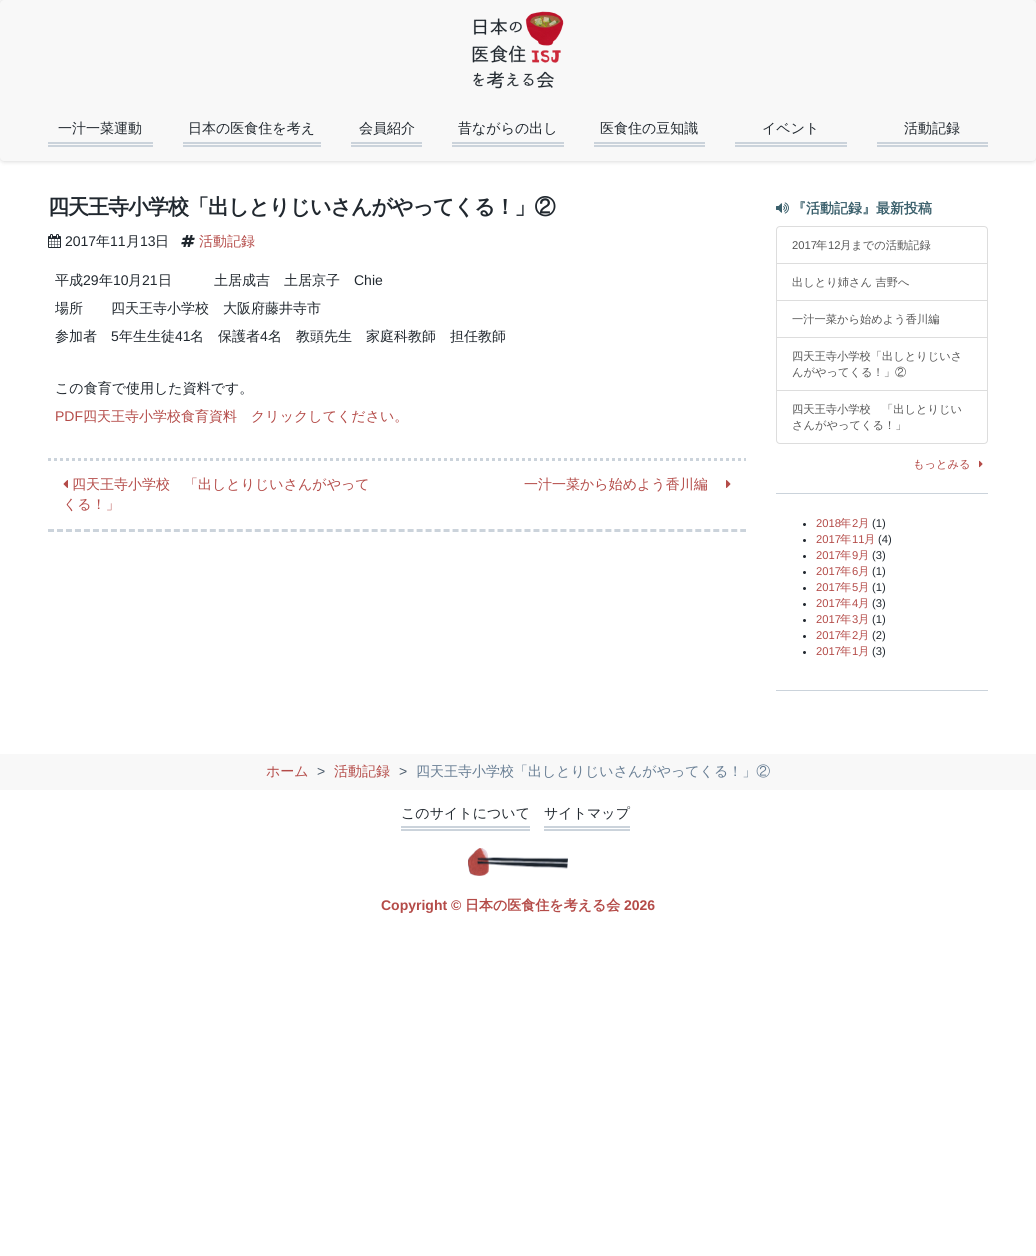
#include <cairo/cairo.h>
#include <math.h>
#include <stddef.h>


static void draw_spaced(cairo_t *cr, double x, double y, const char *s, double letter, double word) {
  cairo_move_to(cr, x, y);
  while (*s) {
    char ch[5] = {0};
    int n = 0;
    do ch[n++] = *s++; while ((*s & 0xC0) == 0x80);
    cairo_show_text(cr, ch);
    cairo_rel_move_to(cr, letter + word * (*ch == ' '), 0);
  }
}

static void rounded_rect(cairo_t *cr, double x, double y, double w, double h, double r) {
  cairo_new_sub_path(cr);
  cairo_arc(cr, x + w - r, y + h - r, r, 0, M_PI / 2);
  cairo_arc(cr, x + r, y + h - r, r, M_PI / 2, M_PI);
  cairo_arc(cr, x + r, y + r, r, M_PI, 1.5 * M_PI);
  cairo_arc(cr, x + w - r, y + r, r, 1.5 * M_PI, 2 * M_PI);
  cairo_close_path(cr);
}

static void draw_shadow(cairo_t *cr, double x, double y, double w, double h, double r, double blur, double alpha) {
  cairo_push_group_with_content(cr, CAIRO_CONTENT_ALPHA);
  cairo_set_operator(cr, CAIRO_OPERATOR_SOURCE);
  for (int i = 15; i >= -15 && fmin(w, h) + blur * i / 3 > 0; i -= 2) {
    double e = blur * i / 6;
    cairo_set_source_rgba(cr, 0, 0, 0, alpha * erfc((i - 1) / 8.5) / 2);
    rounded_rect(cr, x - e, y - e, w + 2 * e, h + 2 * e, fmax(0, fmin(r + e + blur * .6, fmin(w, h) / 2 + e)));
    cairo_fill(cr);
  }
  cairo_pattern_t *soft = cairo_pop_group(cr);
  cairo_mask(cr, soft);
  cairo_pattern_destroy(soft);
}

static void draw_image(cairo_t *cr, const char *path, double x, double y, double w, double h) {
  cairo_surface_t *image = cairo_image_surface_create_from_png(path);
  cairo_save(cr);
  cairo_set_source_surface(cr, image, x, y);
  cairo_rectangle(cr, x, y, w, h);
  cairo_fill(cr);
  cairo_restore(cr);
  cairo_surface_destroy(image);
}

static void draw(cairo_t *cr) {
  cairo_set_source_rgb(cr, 1, 1, 1);
  cairo_paint(cr);
  cairo_set_source_rgb(cr, 0, 0, 0);
  draw_shadow(cr, 0, 0, 1036, 161, 4, 2.5, 0.2);
  cairo_set_source_rgb(cr, 248 / 255.0, 248 / 255.0, 248 / 255.0);
  rounded_rect(cr, 0, 0, 1036, 161, 4);
  cairo_fill(cr);
  draw_image(cr, "images/1.png", 472, 11, 92, 78);
  cairo_set_source_rgb(cr, 203 / 255.0, 211 / 255.0, 219 / 255.0);
  cairo_rectangle(cr, 48, 142, 105, 2);
  cairo_fill(cr);
  cairo_rectangle(cr, 48, 145, 105, 2);
  cairo_fill(cr);
  cairo_rectangle(cr, 183, 142, 138, 2);
  cairo_fill(cr);
  cairo_rectangle(cr, 183, 145, 138, 2);
  cairo_fill(cr);
  cairo_rectangle(cr, 351, 142, 71, 2);
  cairo_fill(cr);
  cairo_rectangle(cr, 351, 145, 71, 2);
  cairo_fill(cr);
  cairo_rectangle(cr, 452, 142, 112, 2);
  cairo_fill(cr);
  cairo_rectangle(cr, 452, 145, 112, 2);
  cairo_fill(cr);
  cairo_rectangle(cr, 594, 142, 111, 2);
  cairo_fill(cr);
  cairo_rectangle(cr, 594, 145, 111, 2);
  cairo_fill(cr);
  cairo_rectangle(cr, 735, 142, 112, 2);
  cairo_fill(cr);
  cairo_rectangle(cr, 735, 145, 112, 2);
  cairo_fill(cr);
  cairo_rectangle(cr, 877, 142, 111, 2);
  cairo_fill(cr);
  cairo_rectangle(cr, 877, 145, 111, 2);
  cairo_fill(cr);
  draw_image(cr, "images/2.png", 48, 234, 13, 14);
  draw_image(cr, "images/3.png", 181, 235, 14, 12);
  cairo_new_path(cr);
  cairo_move_to(cr, 48, 459.5);
  cairo_line_to(cr, 746, 459.5);
  cairo_set_line_width(cr, 3);
  cairo_set_dash(cr, (double[]){3, 3}, 2, 0);
  cairo_stroke(cr);
  cairo_new_path(cr);
  cairo_move_to(cr, 48, 530.5);
  cairo_line_to(cr, 746, 530.5);
  cairo_set_dash(cr, (double[]){6, 2.99}, 2, 0);
  cairo_stroke(cr);
  draw_image(cr, "images/4.png", 63, 480, 5, 8);
  draw_image(cr, "images/5.png", 726, 480, 5, 8);
  cairo_rectangle(cr, 776, 493, 212, 1);
  cairo_fill(cr);
  draw_image(cr, "images/6.png", 776, 202, 13, 12);
  cairo_new_path(cr);
  cairo_move_to(cr, 780, 226.5);
  cairo_line_to(cr, 984, 226.5);
  cairo_curve_to(cr, 986, 226.5, 987.5, 228, 987.5, 230);
  cairo_line_to(cr, 987.5, 263.5);
  cairo_line_to(cr, 776.5, 263.5);
  cairo_line_to(cr, 776.5, 230);
  cairo_curve_to(cr, 776.5, 228, 778, 226.5, 780, 226.5);
  cairo_close_path(cr);
  cairo_set_source_rgb(cr, 221 / 255.0, 221 / 255.0, 221 / 255.0);
  cairo_set_line_width(cr, 1);
  cairo_set_dash(cr, NULL, 0, 0);
  cairo_stroke(cr);
  cairo_rectangle(cr, 776.5, 263.5, 211, 37);
  cairo_stroke(cr);
  cairo_rectangle(cr, 776.5, 300.5, 211, 37);
  cairo_stroke(cr);
  cairo_rectangle(cr, 776.5, 337.5, 211, 53);
  cairo_stroke(cr);
  cairo_set_source_rgb(cr, 1, 1, 1);
  cairo_new_path(cr);
  cairo_move_to(cr, 776.5, 390.5);
  cairo_line_to(cr, 987.5, 390.5);
  cairo_line_to(cr, 987.5, 440);
  cairo_curve_to(cr, 987.5, 442, 986, 443.5, 984, 443.5);
  cairo_line_to(cr, 780, 443.5);
  cairo_curve_to(cr, 778, 443.5, 776.5, 442, 776.5, 440);
  cairo_close_path(cr);
  cairo_fill_preserve(cr);
  cairo_set_source_rgb(cr, 221 / 255.0, 221 / 255.0, 221 / 255.0);
  cairo_stroke(cr);
  draw_image(cr, "images/7.png", 979, 460, 4, 8);
  cairo_set_source_rgb(cr, 203 / 255.0, 211 / 255.0, 219 / 255.0);
  cairo_rectangle(cr, 776, 690, 212, 1);
  cairo_fill(cr);
  cairo_set_source_rgb(cr, 33 / 255.0, 40 / 255.0, 47 / 255.0);
  cairo_arc(cr, 804.5, 524.5, 1.5, 0, 2 * M_PI);
  cairo_fill(cr);
  cairo_arc(cr, 804.5, 540.5, 1.5, 0, 2 * M_PI);
  cairo_fill(cr);
  cairo_arc(cr, 804.5, 556.5, 1.5, 0, 2 * M_PI);
  cairo_fill(cr);
  cairo_arc(cr, 804.5, 572.5, 1.5, 0, 2 * M_PI);
  cairo_fill(cr);
  cairo_arc(cr, 804.5, 588.5, 1.5, 0, 2 * M_PI);
  cairo_fill(cr);
  cairo_arc(cr, 804.5, 604.5, 1.5, 0, 2 * M_PI);
  cairo_fill(cr);
  cairo_arc(cr, 804.5, 620.5, 1.5, 0, 2 * M_PI);
  cairo_fill(cr);
  cairo_arc(cr, 804.5, 636.5, 1.5, 0, 2 * M_PI);
  cairo_fill(cr);
  cairo_arc(cr, 804.5, 652.5, 1.5, 0, 2 * M_PI);
  cairo_fill(cr);
  cairo_set_source_rgb(cr, 248 / 255.0, 248 / 255.0, 248 / 255.0);
  cairo_rectangle(cr, 0, 754, 1036, 36);
  cairo_fill(cr);
  cairo_set_source_rgb(cr, 203 / 255.0, 211 / 255.0, 219 / 255.0);
  cairo_rectangle(cr, 401, 826, 129, 2);
  cairo_fill(cr);
  cairo_rectangle(cr, 401, 829, 129, 2);
  cairo_fill(cr);
  cairo_rectangle(cr, 544, 826, 86, 2);
  cairo_fill(cr);
  cairo_rectangle(cr, 544, 829, 86, 2);
  cairo_fill(cr);
  draw_image(cr, "images/8.png", 468, 848, 100, 28);
  cairo_select_font_face(cr, "WenQuanYi Zen Hei Medium", CAIRO_FONT_SLANT_NORMAL, CAIRO_FONT_WEIGHT_NORMAL);
  cairo_set_font_size(cr, 14);
  cairo_set_source_rgb(cr, 33 / 255.0, 40 / 255.0, 47 / 255.0);
  cairo_move_to(cr, 58, 133);
  cairo_show_text(cr, "一汁一菜運動");
  cairo_move_to(cr, 188, 133);
  cairo_show_text(cr, "日本の医食住を考え");
  cairo_move_to(cr, 359, 133);
  cairo_show_text(cr, "会員紹介");
  cairo_move_to(cr, 458, 133);
  cairo_show_text(cr, "昔ながらの出し");
  cairo_move_to(cr, 600, 133);
  cairo_show_text(cr, "医食住の豆知識");
  cairo_move_to(cr, 762, 133);
  cairo_show_text(cr, "イベント");
  cairo_move_to(cr, 904, 133);
  cairo_show_text(cr, "活動記録");
  cairo_select_font_face(cr, "WenQuanYi Zen Hei", CAIRO_FONT_SLANT_NORMAL, CAIRO_FONT_WEIGHT_BOLD);
  cairo_set_font_size(cr, 21);
  draw_spaced(cr, 48, 214, "四天王寺小学校「出しとりじいさんがやってくる！」②", -1, 0);
  cairo_select_font_face(cr, "Liberation Sans", CAIRO_FONT_SLANT_NORMAL, CAIRO_FONT_WEIGHT_NORMAL);
  cairo_set_font_size(cr, 14);
  cairo_move_to(cr, 65, 246);
  cairo_show_text(cr, "2017");
  cairo_select_font_face(cr, "WenQuanYi Zen Hei Medium", CAIRO_FONT_SLANT_NORMAL, CAIRO_FONT_WEIGHT_NORMAL);
  cairo_move_to(cr, 96, 246);
  cairo_show_text(cr, "年");
  cairo_select_font_face(cr, "Liberation Sans", CAIRO_FONT_SLANT_NORMAL, CAIRO_FONT_WEIGHT_NORMAL);
  cairo_move_to(cr, 110, 246);
  cairo_show_text(cr, "11");
  cairo_select_font_face(cr, "WenQuanYi Zen Hei Medium", CAIRO_FONT_SLANT_NORMAL, CAIRO_FONT_WEIGHT_NORMAL);
  cairo_move_to(cr, 126, 246);
  cairo_show_text(cr, "月");
  cairo_select_font_face(cr, "Liberation Sans", CAIRO_FONT_SLANT_NORMAL, CAIRO_FONT_WEIGHT_NORMAL);
  cairo_move_to(cr, 140, 246);
  cairo_show_text(cr, "13");
  cairo_select_font_face(cr, "WenQuanYi Zen Hei Medium", CAIRO_FONT_SLANT_NORMAL, CAIRO_FONT_WEIGHT_NORMAL);
  cairo_move_to(cr, 155, 246);
  cairo_show_text(cr, "日");
  cairo_set_source_rgb(cr, 180 / 255.0, 75 / 255.0, 72 / 255.0);
  cairo_move_to(cr, 199, 246);
  cairo_show_text(cr, "活動記録");
  cairo_set_source_rgb(cr, 33 / 255.0, 40 / 255.0, 47 / 255.0);
  cairo_move_to(cr, 55, 285);
  cairo_show_text(cr, "平成");
  cairo_select_font_face(cr, "Liberation Sans", CAIRO_FONT_SLANT_NORMAL, CAIRO_FONT_WEIGHT_NORMAL);
  cairo_move_to(cr, 83, 285);
  cairo_show_text(cr, "29");
  cairo_select_font_face(cr, "WenQuanYi Zen Hei Medium", CAIRO_FONT_SLANT_NORMAL, CAIRO_FONT_WEIGHT_NORMAL);
  cairo_move_to(cr, 99, 285);
  cairo_show_text(cr, "年");
  cairo_select_font_face(cr, "Liberation Sans", CAIRO_FONT_SLANT_NORMAL, CAIRO_FONT_WEIGHT_NORMAL);
  cairo_move_to(cr, 113, 285);
  cairo_show_text(cr, "10");
  cairo_select_font_face(cr, "WenQuanYi Zen Hei Medium", CAIRO_FONT_SLANT_NORMAL, CAIRO_FONT_WEIGHT_NORMAL);
  cairo_move_to(cr, 128, 285);
  cairo_show_text(cr, "月");
  cairo_select_font_face(cr, "Liberation Sans", CAIRO_FONT_SLANT_NORMAL, CAIRO_FONT_WEIGHT_NORMAL);
  cairo_move_to(cr, 142, 285);
  cairo_show_text(cr, "21");
  cairo_select_font_face(cr, "WenQuanYi Zen Hei Medium", CAIRO_FONT_SLANT_NORMAL, CAIRO_FONT_WEIGHT_NORMAL);
  cairo_move_to(cr, 158, 285);
  cairo_show_text(cr, "日　　　土居成吉　土居京子");
  cairo_select_font_face(cr, "Liberation Sans", CAIRO_FONT_SLANT_NORMAL, CAIRO_FONT_WEIGHT_NORMAL);
  cairo_move_to(cr, 354, 285);
  cairo_show_text(cr, "Chie");
  cairo_select_font_face(cr, "WenQuanYi Zen Hei Medium", CAIRO_FONT_SLANT_NORMAL, CAIRO_FONT_WEIGHT_NORMAL);
  cairo_move_to(cr, 55, 313);
  cairo_show_text(cr, "場所　　四天王寺小学校　大阪府藤井寺市");
  cairo_move_to(cr, 55, 341);
  cairo_show_text(cr, "参加者");
  cairo_select_font_face(cr, "Liberation Sans", CAIRO_FONT_SLANT_NORMAL, CAIRO_FONT_WEIGHT_NORMAL);
  cairo_move_to(cr, 111, 341);
  cairo_show_text(cr, "5");
  cairo_select_font_face(cr, "WenQuanYi Zen Hei Medium", CAIRO_FONT_SLANT_NORMAL, CAIRO_FONT_WEIGHT_NORMAL);
  cairo_move_to(cr, 119, 341);
  cairo_show_text(cr, "年生生徒");
  cairo_select_font_face(cr, "Liberation Sans", CAIRO_FONT_SLANT_NORMAL, CAIRO_FONT_WEIGHT_NORMAL);
  cairo_move_to(cr, 175, 341);
  cairo_show_text(cr, "41");
  cairo_select_font_face(cr, "WenQuanYi Zen Hei Medium", CAIRO_FONT_SLANT_NORMAL, CAIRO_FONT_WEIGHT_NORMAL);
  cairo_move_to(cr, 190, 341);
  cairo_show_text(cr, "名　保護者");
  cairo_select_font_face(cr, "Liberation Sans", CAIRO_FONT_SLANT_NORMAL, CAIRO_FONT_WEIGHT_NORMAL);
  cairo_move_to(cr, 260, 341);
  cairo_show_text(cr, "4");
  cairo_select_font_face(cr, "WenQuanYi Zen Hei Medium", CAIRO_FONT_SLANT_NORMAL, CAIRO_FONT_WEIGHT_NORMAL);
  cairo_move_to(cr, 268, 341);
  cairo_show_text(cr, "名　教頭先生　家庭科教師　担任教師");
  cairo_move_to(cr, 55, 393);
  cairo_show_text(cr, "この食育で使用した資料です。");
  cairo_select_font_face(cr, "Liberation Sans", CAIRO_FONT_SLANT_NORMAL, CAIRO_FONT_WEIGHT_NORMAL);
  cairo_set_source_rgb(cr, 180 / 255.0, 75 / 255.0, 72 / 255.0);
  cairo_move_to(cr, 55, 421);
  cairo_show_text(cr, "PDF");
  cairo_select_font_face(cr, "WenQuanYi Zen Hei Medium", CAIRO_FONT_SLANT_NORMAL, CAIRO_FONT_WEIGHT_NORMAL);
  cairo_move_to(cr, 83, 421);
  cairo_show_text(cr, "四天王寺小学校食育資料　クリックしてください。");
  cairo_move_to(cr, 72, 489);
  cairo_show_text(cr, "四天王寺小学校　「出しとりじいさんがやって");
  cairo_move_to(cr, 63, 509);
  cairo_show_text(cr, "くる！」");
  cairo_move_to(cr, 524, 489);
  cairo_show_text(cr, "一汁一菜から始めよう香川編");
  cairo_select_font_face(cr, "WenQuanYi Zen Hei", CAIRO_FONT_SLANT_NORMAL, CAIRO_FONT_WEIGHT_BOLD);
  cairo_set_source_rgb(cr, 59 / 255.0, 96 / 255.0, 108 / 255.0);
  cairo_move_to(cr, 792, 213);
  cairo_show_text(cr, "『活動記録』最新投稿");
  cairo_select_font_face(cr, "Liberation Sans", CAIRO_FONT_SLANT_NORMAL, CAIRO_FONT_WEIGHT_NORMAL);
  cairo_set_font_size(cr, 11.25);
  cairo_set_source_rgb(cr, 85 / 255.0, 85 / 255.0, 85 / 255.0);
  cairo_move_to(cr, 792, 249);
  cairo_show_text(cr, "2017");
  cairo_select_font_face(cr, "WenQuanYi Zen Hei Medium", CAIRO_FONT_SLANT_NORMAL, CAIRO_FONT_WEIGHT_NORMAL);
  cairo_move_to(cr, 816, 249);
  cairo_show_text(cr, "年");
  cairo_select_font_face(cr, "Liberation Sans", CAIRO_FONT_SLANT_NORMAL, CAIRO_FONT_WEIGHT_NORMAL);
  cairo_move_to(cr, 828, 249);
  cairo_show_text(cr, "12");
  cairo_select_font_face(cr, "WenQuanYi Zen Hei Medium", CAIRO_FONT_SLANT_NORMAL, CAIRO_FONT_WEIGHT_NORMAL);
  cairo_move_to(cr, 840, 249);
  cairo_show_text(cr, "月までの活動記録");
  cairo_move_to(cr, 792, 286);
  cairo_show_text(cr, "出しとり姉さん 吉野へ");
  cairo_move_to(cr, 792, 323);
  cairo_show_text(cr, "一汁一菜から始めよう香川編");
  cairo_move_to(cr, 792, 360);
  cairo_show_text(cr, "四天王寺小学校「出しとりじいさ");
  cairo_move_to(cr, 792, 376);
  cairo_show_text(cr, "んがやってくる！」②");
  cairo_move_to(cr, 792, 413);
  cairo_show_text(cr, "四天王寺小学校　「出しとりじい");
  cairo_move_to(cr, 792, 429);
  cairo_show_text(cr, "さんがやってくる！」");
  cairo_set_source_rgb(cr, 180 / 255.0, 75 / 255.0, 72 / 255.0);
  cairo_move_to(cr, 913, 468);
  cairo_show_text(cr, "もっとみる");
  cairo_select_font_face(cr, "Liberation Sans", CAIRO_FONT_SLANT_NORMAL, CAIRO_FONT_WEIGHT_NORMAL);
  cairo_move_to(cr, 816, 527);
  cairo_show_text(cr, "2018");
  cairo_select_font_face(cr, "WenQuanYi Zen Hei Medium", CAIRO_FONT_SLANT_NORMAL, CAIRO_FONT_WEIGHT_NORMAL);
  cairo_move_to(cr, 840, 527);
  cairo_show_text(cr, "年");
  cairo_select_font_face(cr, "Liberation Sans", CAIRO_FONT_SLANT_NORMAL, CAIRO_FONT_WEIGHT_NORMAL);
  cairo_move_to(cr, 852, 527);
  cairo_show_text(cr, "2");
  cairo_select_font_face(cr, "WenQuanYi Zen Hei Medium", CAIRO_FONT_SLANT_NORMAL, CAIRO_FONT_WEIGHT_NORMAL);
  cairo_move_to(cr, 858, 527);
  cairo_show_text(cr, "月");
  cairo_select_font_face(cr, "Liberation Sans", CAIRO_FONT_SLANT_NORMAL, CAIRO_FONT_WEIGHT_NORMAL);
  cairo_set_source_rgb(cr, 33 / 255.0, 40 / 255.0, 47 / 255.0);
  cairo_move_to(cr, 872, 527);
  cairo_show_text(cr, "(1)");
  cairo_set_source_rgb(cr, 180 / 255.0, 75 / 255.0, 72 / 255.0);
  cairo_move_to(cr, 816, 543);
  cairo_show_text(cr, "2017");
  cairo_select_font_face(cr, "WenQuanYi Zen Hei Medium", CAIRO_FONT_SLANT_NORMAL, CAIRO_FONT_WEIGHT_NORMAL);
  cairo_move_to(cr, 840, 543);
  cairo_show_text(cr, "年");
  cairo_select_font_face(cr, "Liberation Sans", CAIRO_FONT_SLANT_NORMAL, CAIRO_FONT_WEIGHT_NORMAL);
  cairo_move_to(cr, 852, 543);
  cairo_show_text(cr, "11");
  cairo_select_font_face(cr, "WenQuanYi Zen Hei Medium", CAIRO_FONT_SLANT_NORMAL, CAIRO_FONT_WEIGHT_NORMAL);
  cairo_move_to(cr, 864, 543);
  cairo_show_text(cr, "月");
  cairo_select_font_face(cr, "Liberation Sans", CAIRO_FONT_SLANT_NORMAL, CAIRO_FONT_WEIGHT_NORMAL);
  cairo_set_source_rgb(cr, 33 / 255.0, 40 / 255.0, 47 / 255.0);
  cairo_move_to(cr, 878, 543);
  cairo_show_text(cr, "(4)");
  cairo_set_source_rgb(cr, 180 / 255.0, 75 / 255.0, 72 / 255.0);
  cairo_move_to(cr, 816, 559);
  cairo_show_text(cr, "2017");
  cairo_select_font_face(cr, "WenQuanYi Zen Hei Medium", CAIRO_FONT_SLANT_NORMAL, CAIRO_FONT_WEIGHT_NORMAL);
  cairo_move_to(cr, 840, 559);
  cairo_show_text(cr, "年");
  cairo_select_font_face(cr, "Liberation Sans", CAIRO_FONT_SLANT_NORMAL, CAIRO_FONT_WEIGHT_NORMAL);
  cairo_move_to(cr, 852, 559);
  cairo_show_text(cr, "9");
  cairo_select_font_face(cr, "WenQuanYi Zen Hei Medium", CAIRO_FONT_SLANT_NORMAL, CAIRO_FONT_WEIGHT_NORMAL);
  cairo_move_to(cr, 858, 559);
  cairo_show_text(cr, "月");
  cairo_select_font_face(cr, "Liberation Sans", CAIRO_FONT_SLANT_NORMAL, CAIRO_FONT_WEIGHT_NORMAL);
  cairo_set_source_rgb(cr, 33 / 255.0, 40 / 255.0, 47 / 255.0);
  cairo_move_to(cr, 872, 559);
  cairo_show_text(cr, "(3)");
  cairo_set_source_rgb(cr, 180 / 255.0, 75 / 255.0, 72 / 255.0);
  cairo_move_to(cr, 816, 575);
  cairo_show_text(cr, "2017");
  cairo_select_font_face(cr, "WenQuanYi Zen Hei Medium", CAIRO_FONT_SLANT_NORMAL, CAIRO_FONT_WEIGHT_NORMAL);
  cairo_move_to(cr, 840, 575);
  cairo_show_text(cr, "年");
  cairo_select_font_face(cr, "Liberation Sans", CAIRO_FONT_SLANT_NORMAL, CAIRO_FONT_WEIGHT_NORMAL);
  cairo_move_to(cr, 852, 575);
  cairo_show_text(cr, "6");
  cairo_select_font_face(cr, "WenQuanYi Zen Hei Medium", CAIRO_FONT_SLANT_NORMAL, CAIRO_FONT_WEIGHT_NORMAL);
  cairo_move_to(cr, 858, 575);
  cairo_show_text(cr, "月");
  cairo_select_font_face(cr, "Liberation Sans", CAIRO_FONT_SLANT_NORMAL, CAIRO_FONT_WEIGHT_NORMAL);
  cairo_set_source_rgb(cr, 33 / 255.0, 40 / 255.0, 47 / 255.0);
  cairo_move_to(cr, 872, 575);
  cairo_show_text(cr, "(1)");
  cairo_set_source_rgb(cr, 180 / 255.0, 75 / 255.0, 72 / 255.0);
  cairo_move_to(cr, 816, 591);
  cairo_show_text(cr, "2017");
  cairo_select_font_face(cr, "WenQuanYi Zen Hei Medium", CAIRO_FONT_SLANT_NORMAL, CAIRO_FONT_WEIGHT_NORMAL);
  cairo_move_to(cr, 840, 591);
  cairo_show_text(cr, "年");
  cairo_select_font_face(cr, "Liberation Sans", CAIRO_FONT_SLANT_NORMAL, CAIRO_FONT_WEIGHT_NORMAL);
  cairo_move_to(cr, 852, 591);
  cairo_show_text(cr, "5");
  cairo_select_font_face(cr, "WenQuanYi Zen Hei Medium", CAIRO_FONT_SLANT_NORMAL, CAIRO_FONT_WEIGHT_NORMAL);
  cairo_move_to(cr, 858, 591);
  cairo_show_text(cr, "月");
  cairo_select_font_face(cr, "Liberation Sans", CAIRO_FONT_SLANT_NORMAL, CAIRO_FONT_WEIGHT_NORMAL);
  cairo_set_source_rgb(cr, 33 / 255.0, 40 / 255.0, 47 / 255.0);
  cairo_move_to(cr, 872, 591);
  cairo_show_text(cr, "(1)");
  cairo_set_source_rgb(cr, 180 / 255.0, 75 / 255.0, 72 / 255.0);
  cairo_move_to(cr, 816, 607);
  cairo_show_text(cr, "2017");
  cairo_select_font_face(cr, "WenQuanYi Zen Hei Medium", CAIRO_FONT_SLANT_NORMAL, CAIRO_FONT_WEIGHT_NORMAL);
  cairo_move_to(cr, 840, 607);
  cairo_show_text(cr, "年");
  cairo_select_font_face(cr, "Liberation Sans", CAIRO_FONT_SLANT_NORMAL, CAIRO_FONT_WEIGHT_NORMAL);
  cairo_move_to(cr, 852, 607);
  cairo_show_text(cr, "4");
  cairo_select_font_face(cr, "WenQuanYi Zen Hei Medium", CAIRO_FONT_SLANT_NORMAL, CAIRO_FONT_WEIGHT_NORMAL);
  cairo_move_to(cr, 858, 607);
  cairo_show_text(cr, "月");
  cairo_select_font_face(cr, "Liberation Sans", CAIRO_FONT_SLANT_NORMAL, CAIRO_FONT_WEIGHT_NORMAL);
  cairo_set_source_rgb(cr, 33 / 255.0, 40 / 255.0, 47 / 255.0);
  cairo_move_to(cr, 872, 607);
  cairo_show_text(cr, "(3)");
  cairo_set_source_rgb(cr, 180 / 255.0, 75 / 255.0, 72 / 255.0);
  cairo_move_to(cr, 816, 623);
  cairo_show_text(cr, "2017");
  cairo_select_font_face(cr, "WenQuanYi Zen Hei Medium", CAIRO_FONT_SLANT_NORMAL, CAIRO_FONT_WEIGHT_NORMAL);
  cairo_move_to(cr, 840, 623);
  cairo_show_text(cr, "年");
  cairo_select_font_face(cr, "Liberation Sans", CAIRO_FONT_SLANT_NORMAL, CAIRO_FONT_WEIGHT_NORMAL);
  cairo_move_to(cr, 852, 623);
  cairo_show_text(cr, "3");
  cairo_select_font_face(cr, "WenQuanYi Zen Hei Medium", CAIRO_FONT_SLANT_NORMAL, CAIRO_FONT_WEIGHT_NORMAL);
  cairo_move_to(cr, 858, 623);
  cairo_show_text(cr, "月");
  cairo_select_font_face(cr, "Liberation Sans", CAIRO_FONT_SLANT_NORMAL, CAIRO_FONT_WEIGHT_NORMAL);
  cairo_set_source_rgb(cr, 33 / 255.0, 40 / 255.0, 47 / 255.0);
  cairo_move_to(cr, 872, 623);
  cairo_show_text(cr, "(1)");
  cairo_set_source_rgb(cr, 180 / 255.0, 75 / 255.0, 72 / 255.0);
  cairo_move_to(cr, 816, 639);
  cairo_show_text(cr, "2017");
  cairo_select_font_face(cr, "WenQuanYi Zen Hei Medium", CAIRO_FONT_SLANT_NORMAL, CAIRO_FONT_WEIGHT_NORMAL);
  cairo_move_to(cr, 840, 639);
  cairo_show_text(cr, "年");
  cairo_select_font_face(cr, "Liberation Sans", CAIRO_FONT_SLANT_NORMAL, CAIRO_FONT_WEIGHT_NORMAL);
  cairo_move_to(cr, 852, 639);
  cairo_show_text(cr, "2");
  cairo_select_font_face(cr, "WenQuanYi Zen Hei Medium", CAIRO_FONT_SLANT_NORMAL, CAIRO_FONT_WEIGHT_NORMAL);
  cairo_move_to(cr, 858, 639);
  cairo_show_text(cr, "月");
  cairo_select_font_face(cr, "Liberation Sans", CAIRO_FONT_SLANT_NORMAL, CAIRO_FONT_WEIGHT_NORMAL);
  cairo_set_source_rgb(cr, 33 / 255.0, 40 / 255.0, 47 / 255.0);
  cairo_move_to(cr, 872, 639);
  cairo_show_text(cr, "(2)");
  cairo_set_source_rgb(cr, 180 / 255.0, 75 / 255.0, 72 / 255.0);
  cairo_move_to(cr, 816, 655);
  cairo_show_text(cr, "2017");
  cairo_select_font_face(cr, "WenQuanYi Zen Hei Medium", CAIRO_FONT_SLANT_NORMAL, CAIRO_FONT_WEIGHT_NORMAL);
  cairo_move_to(cr, 840, 655);
  cairo_show_text(cr, "年");
  cairo_select_font_face(cr, "Liberation Sans", CAIRO_FONT_SLANT_NORMAL, CAIRO_FONT_WEIGHT_NORMAL);
  cairo_move_to(cr, 852, 655);
  cairo_show_text(cr, "1");
  cairo_select_font_face(cr, "WenQuanYi Zen Hei Medium", CAIRO_FONT_SLANT_NORMAL, CAIRO_FONT_WEIGHT_NORMAL);
  cairo_move_to(cr, 858, 655);
  cairo_show_text(cr, "月");
  cairo_select_font_face(cr, "Liberation Sans", CAIRO_FONT_SLANT_NORMAL, CAIRO_FONT_WEIGHT_NORMAL);
  cairo_set_source_rgb(cr, 33 / 255.0, 40 / 255.0, 47 / 255.0);
  cairo_move_to(cr, 872, 655);
  cairo_show_text(cr, "(3)");
  cairo_select_font_face(cr, "WenQuanYi Zen Hei Medium", CAIRO_FONT_SLANT_NORMAL, CAIRO_FONT_WEIGHT_NORMAL);
  cairo_set_font_size(cr, 14);
  cairo_set_source_rgb(cr, 180 / 255.0, 75 / 255.0, 72 / 255.0);
  cairo_move_to(cr, 266, 776);
  cairo_show_text(cr, "ホーム");
  cairo_select_font_face(cr, "Liberation Sans", CAIRO_FONT_SLANT_NORMAL, CAIRO_FONT_WEIGHT_NORMAL);
  cairo_set_source_rgb(cr, 75 / 255.0, 91 / 255.0, 107 / 255.0);
  cairo_move_to(cr, 317, 776);
  cairo_show_text(cr, ">");
  cairo_select_font_face(cr, "WenQuanYi Zen Hei Medium", CAIRO_FONT_SLANT_NORMAL, CAIRO_FONT_WEIGHT_NORMAL);
  cairo_set_source_rgb(cr, 180 / 255.0, 75 / 255.0, 72 / 255.0);
  cairo_move_to(cr, 334, 776);
  cairo_show_text(cr, "活動記録");
  cairo_select_font_face(cr, "Liberation Sans", CAIRO_FONT_SLANT_NORMAL, CAIRO_FONT_WEIGHT_NORMAL);
  cairo_set_source_rgb(cr, 75 / 255.0, 91 / 255.0, 107 / 255.0);
  cairo_move_to(cr, 399, 776);
  cairo_show_text(cr, ">");
  cairo_select_font_face(cr, "WenQuanYi Zen Hei Medium", CAIRO_FONT_SLANT_NORMAL, CAIRO_FONT_WEIGHT_NORMAL);
  cairo_set_source_rgb(cr, 103 / 255.0, 125 / 255.0, 147 / 255.0);
  cairo_move_to(cr, 416, 776);
  cairo_show_text(cr, "四天王寺小学校「出しとりじいさんがやってくる！」②");
  cairo_set_source_rgb(cr, 33 / 255.0, 40 / 255.0, 47 / 255.0);
  cairo_move_to(cr, 401, 818);
  cairo_show_text(cr, "このサイトについて");
  cairo_move_to(cr, 544, 818);
  cairo_show_text(cr, "サイトマップ");
  cairo_select_font_face(cr, "Liberation Sans", CAIRO_FONT_SLANT_NORMAL, CAIRO_FONT_WEIGHT_BOLD);
  cairo_set_source_rgb(cr, 180 / 255.0, 75 / 255.0, 72 / 255.0);
  cairo_move_to(cr, 381, 910);
  cairo_show_text(cr, "Copyright ©");
  cairo_select_font_face(cr, "WenQuanYi Zen Hei", CAIRO_FONT_SLANT_NORMAL, CAIRO_FONT_WEIGHT_BOLD);
  cairo_move_to(cr, 465, 910);
  cairo_show_text(cr, "日本の医食住を考える会");
  cairo_select_font_face(cr, "Liberation Sans", CAIRO_FONT_SLANT_NORMAL, CAIRO_FONT_WEIGHT_BOLD);
  cairo_move_to(cr, 624, 910);
  cairo_show_text(cr, "2026");
}

int main(void) {
  cairo_surface_t *surface = cairo_image_surface_create(CAIRO_FORMAT_RGB24, 1036, 1256);
  cairo_t *cr = cairo_create(surface);
  cairo_font_options_t *options = cairo_font_options_create();
  cairo_font_options_set_hint_metrics(options, CAIRO_HINT_METRICS_OFF);
  cairo_font_options_set_hint_style(options, CAIRO_HINT_STYLE_NONE);
  cairo_set_font_options(cr, options);
  cairo_set_miter_limit(cr, 4);
  draw(cr);
  cairo_surface_write_to_png(surface, "out.png");
  cairo_font_options_destroy(options);
  cairo_destroy(cr);
  cairo_surface_destroy(surface);
  return 0;
}
